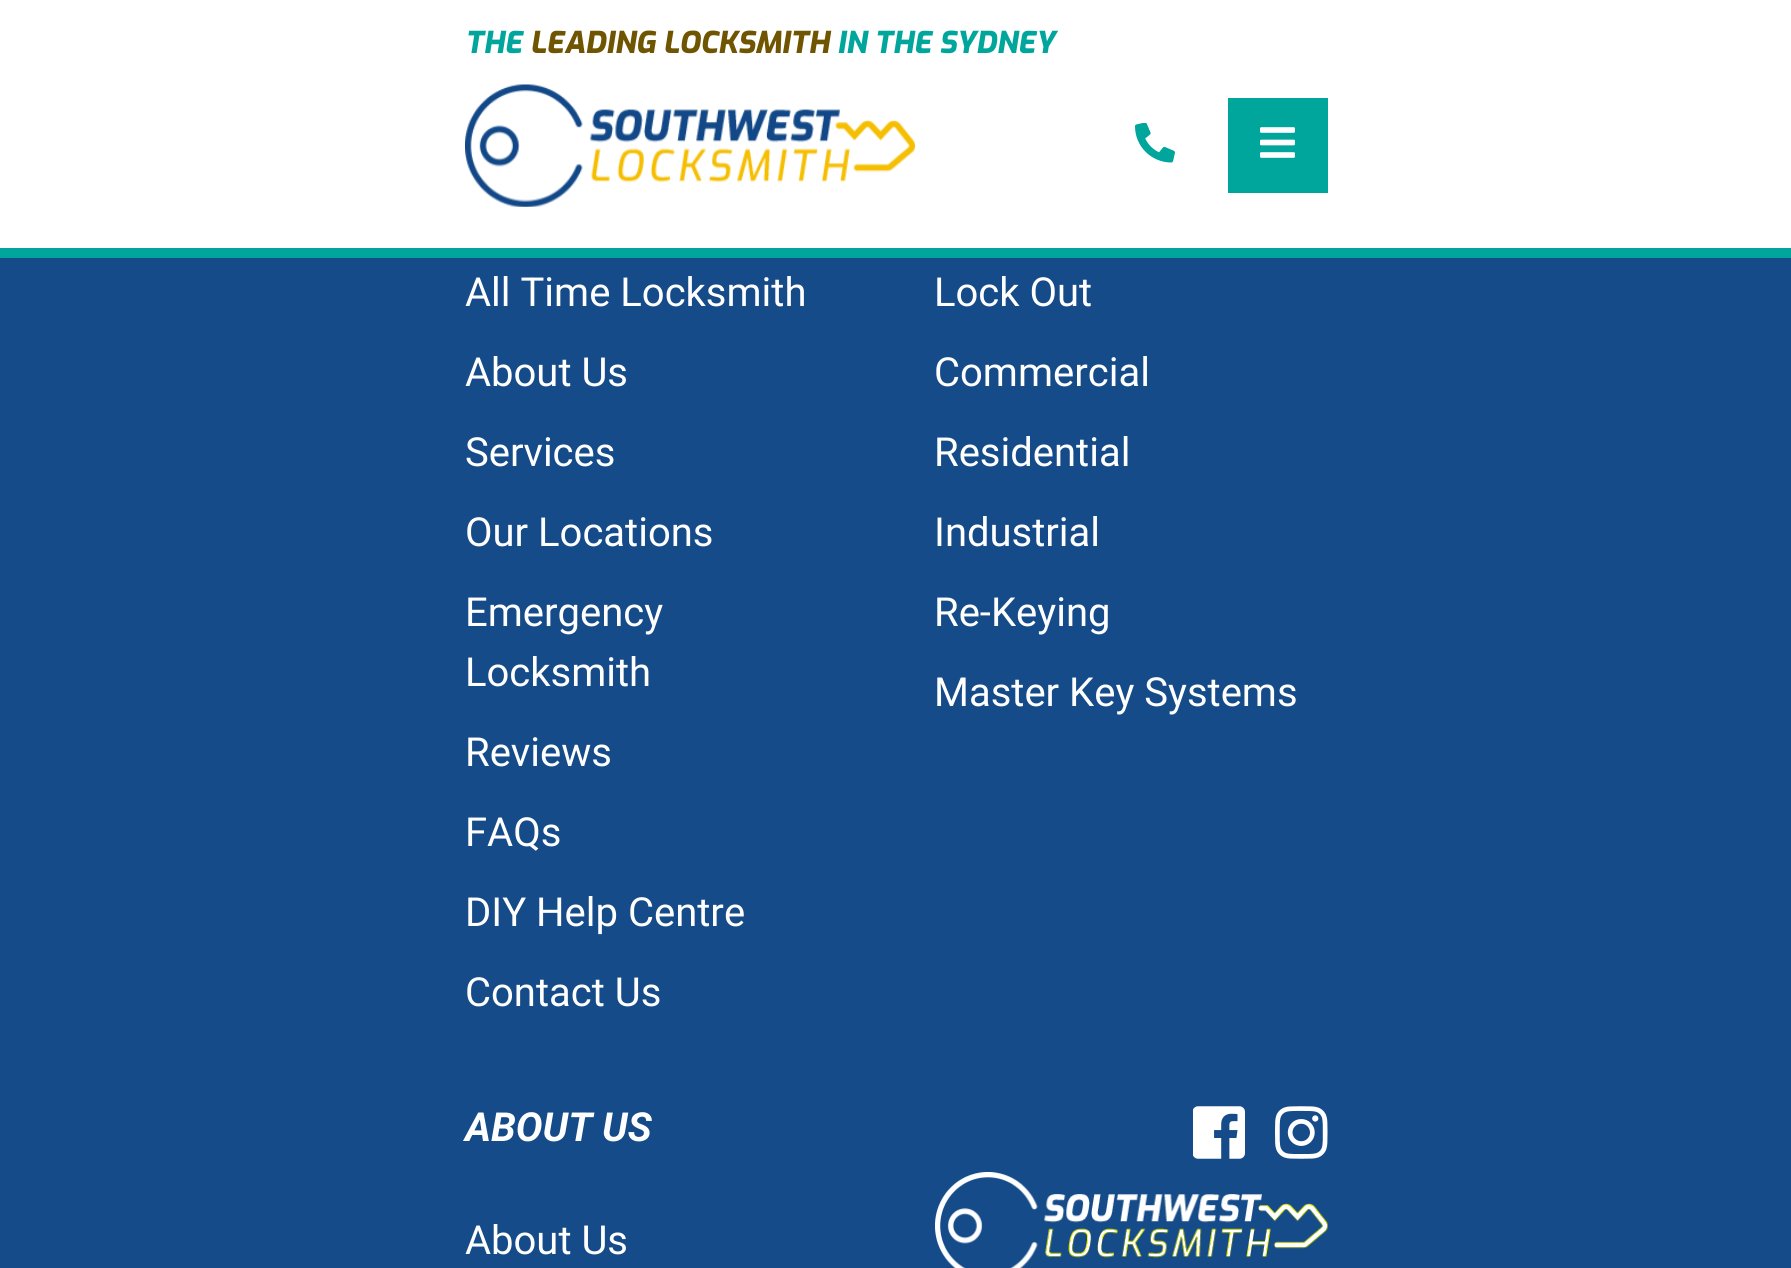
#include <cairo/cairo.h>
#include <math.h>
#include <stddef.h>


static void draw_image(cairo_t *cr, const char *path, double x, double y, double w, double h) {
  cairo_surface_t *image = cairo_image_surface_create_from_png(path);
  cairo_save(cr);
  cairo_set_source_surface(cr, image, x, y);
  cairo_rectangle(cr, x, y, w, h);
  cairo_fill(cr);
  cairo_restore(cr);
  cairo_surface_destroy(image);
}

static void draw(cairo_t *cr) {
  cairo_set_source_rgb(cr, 22 / 255.0, 75 / 255.0, 137 / 255.0);
  cairo_paint(cr);
  cairo_set_source_rgb(cr, 1, 1, 1);
  cairo_rectangle(cr, 0, 0, 1791, 248);
  cairo_fill(cr);
  draw_image(cr, "images/1.png", 465, 84, 450, 123);
  draw_image(cr, "images/2.png", 1135, 123, 40, 40);
  cairo_set_source_rgb(cr, 0, 166 / 255.0, 156 / 255.0);
  cairo_rectangle(cr, 1228, 98, 100, 95);
  cairo_fill(cr);
  draw_image(cr, "images/3.png", 1260, 127, 35, 31);
  cairo_rectangle(cr, 0, 248, 1791, 10);
  cairo_fill(cr);
  draw_image(cr, "images/4.png", 1193, 1106, 52, 53);
  draw_image(cr, "images/5.png", 1275, 1106, 53, 53);
  draw_image(cr, "images/6.png", 935, 1172, 393, 96);
  cairo_select_font_face(cr, "Exo ExtraBold", CAIRO_FONT_SLANT_ITALIC, CAIRO_FONT_WEIGHT_NORMAL);
  cairo_set_font_size(cr, 30);
  cairo_move_to(cr, 465, 53);
  cairo_show_text(cr, "THE");
  cairo_set_source_rgb(cr, 111 / 255.0, 85 / 255.0, 1 / 255.0);
  cairo_move_to(cr, 530, 53);
  cairo_show_text(cr, "LEADING LOCKSMITH");
  cairo_set_source_rgb(cr, 0, 166 / 255.0, 156 / 255.0);
  cairo_move_to(cr, 837, 53);
  cairo_show_text(cr, "IN THE SYDNEY");
  cairo_select_font_face(cr, "Roboto", CAIRO_FONT_SLANT_NORMAL, CAIRO_FONT_WEIGHT_NORMAL);
  cairo_set_font_size(cr, 40);
  cairo_set_source_rgb(cr, 1, 1, 1);
  cairo_move_to(cr, 465, 306);
  cairo_show_text(cr, "All Time Locksmith");
  cairo_move_to(cr, 465, 386);
  cairo_show_text(cr, "About Us");
  cairo_move_to(cr, 465, 466);
  cairo_show_text(cr, "Services");
  cairo_move_to(cr, 465, 546);
  cairo_show_text(cr, "Our Locations");
  cairo_move_to(cr, 465, 626);
  cairo_show_text(cr, "Emergency");
  cairo_move_to(cr, 465, 686);
  cairo_show_text(cr, "Locksmith");
  cairo_move_to(cr, 465, 766);
  cairo_show_text(cr, "Reviews");
  cairo_move_to(cr, 465, 846);
  cairo_show_text(cr, "FAQs");
  cairo_move_to(cr, 465, 926);
  cairo_show_text(cr, "DIY Help Centre");
  cairo_move_to(cr, 465, 1006);
  cairo_show_text(cr, "Contact Us");
  cairo_move_to(cr, 934, 306);
  cairo_show_text(cr, "Lock Out");
  cairo_move_to(cr, 934, 386);
  cairo_show_text(cr, "Commercial");
  cairo_move_to(cr, 934, 466);
  cairo_show_text(cr, "Residential");
  cairo_move_to(cr, 934, 546);
  cairo_show_text(cr, "Industrial");
  cairo_move_to(cr, 934, 626);
  cairo_show_text(cr, "Re-Keying");
  cairo_move_to(cr, 934, 706);
  cairo_show_text(cr, "Master Key Systems");
  cairo_select_font_face(cr, "Roboto", CAIRO_FONT_SLANT_ITALIC, CAIRO_FONT_WEIGHT_BOLD);
  cairo_move_to(cr, 465, 1141);
  cairo_show_text(cr, "ABOUT US");
  cairo_select_font_face(cr, "Roboto", CAIRO_FONT_SLANT_NORMAL, CAIRO_FONT_WEIGHT_NORMAL);
  cairo_move_to(cr, 465, 1254);
  cairo_show_text(cr, "About Us");
}

int main(void) {
  cairo_surface_t *surface = cairo_image_surface_create(CAIRO_FORMAT_RGB24, 1791, 1268);
  cairo_t *cr = cairo_create(surface);
  cairo_font_options_t *options = cairo_font_options_create();
  cairo_font_options_set_hint_metrics(options, CAIRO_HINT_METRICS_OFF);
  cairo_font_options_set_hint_style(options, CAIRO_HINT_STYLE_NONE);
  cairo_set_font_options(cr, options);
  cairo_set_miter_limit(cr, 4);
  draw(cr);
  cairo_surface_write_to_png(surface, "out.png");
  cairo_font_options_destroy(options);
  cairo_destroy(cr);
  cairo_surface_destroy(surface);
  return 0;
}
